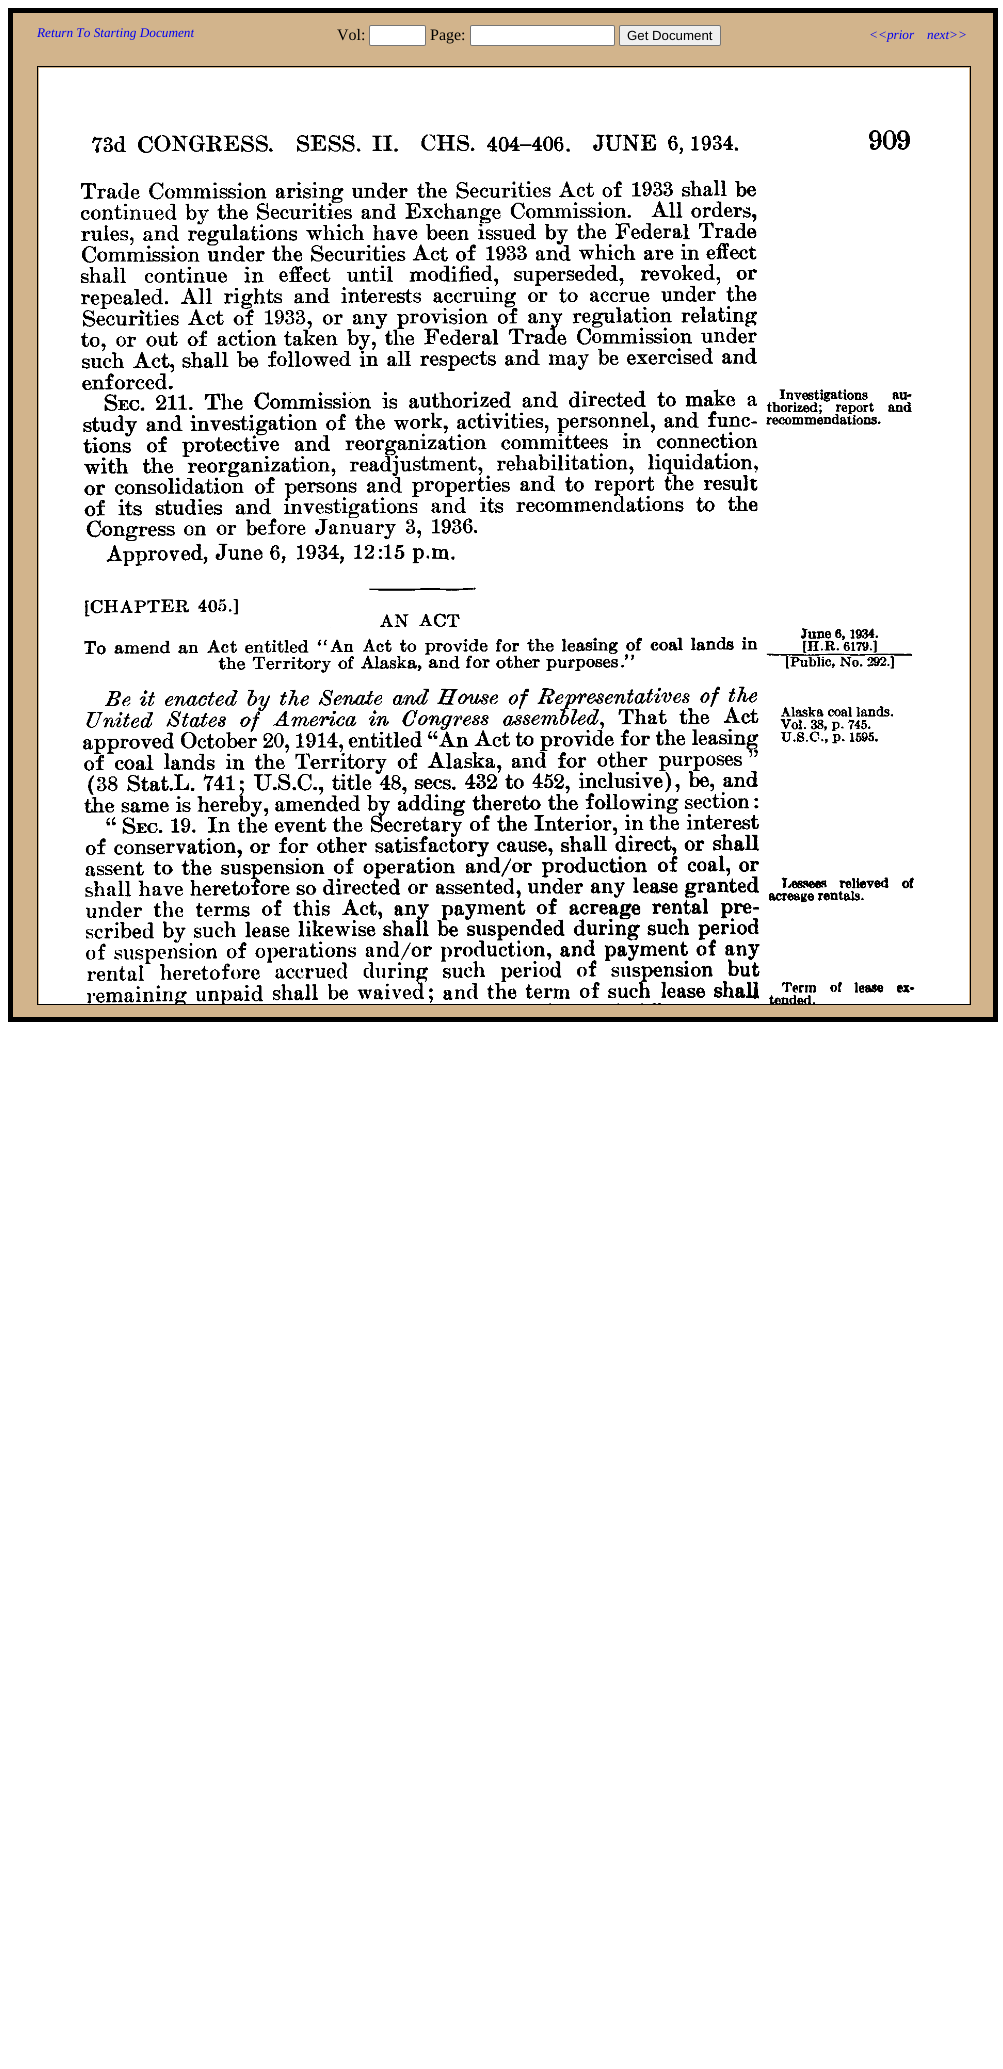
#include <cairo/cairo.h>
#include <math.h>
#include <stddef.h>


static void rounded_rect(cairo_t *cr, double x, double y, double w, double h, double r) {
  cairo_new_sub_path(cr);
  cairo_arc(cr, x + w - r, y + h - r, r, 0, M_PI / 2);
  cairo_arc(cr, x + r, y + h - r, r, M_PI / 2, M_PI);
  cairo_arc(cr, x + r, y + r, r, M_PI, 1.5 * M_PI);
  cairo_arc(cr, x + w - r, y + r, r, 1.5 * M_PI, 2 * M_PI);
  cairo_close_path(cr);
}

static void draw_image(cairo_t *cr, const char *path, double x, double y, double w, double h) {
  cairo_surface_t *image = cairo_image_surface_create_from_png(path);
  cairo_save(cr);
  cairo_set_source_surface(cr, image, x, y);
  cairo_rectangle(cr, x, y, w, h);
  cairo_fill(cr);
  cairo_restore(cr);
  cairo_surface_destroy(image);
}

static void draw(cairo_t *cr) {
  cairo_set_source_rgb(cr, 1, 1, 1);
  cairo_paint(cr);
  cairo_set_source_rgb(cr, 210 / 255.0, 180 / 255.0, 140 / 255.0);
  cairo_rectangle(cr, 10.5, 10.5, 985, 1009);
  cairo_fill_preserve(cr);
  cairo_set_source_rgb(cr, 0, 0, 0);
  cairo_set_line_width(cr, 5);
  cairo_stroke(cr);
  cairo_set_source_rgb(cr, 1, 1, 1);
  rounded_rect(cr, 369.5, 25.5, 56, 20, 1.5);
  cairo_fill_preserve(cr);
  cairo_set_source_rgb(cr, 118 / 255.0, 118 / 255.0, 118 / 255.0);
  cairo_set_line_width(cr, 1);
  cairo_stroke(cr);
  cairo_set_source_rgb(cr, 1, 1, 1);
  rounded_rect(cr, 470.5, 25.5, 144, 20, 1.5);
  cairo_fill_preserve(cr);
  cairo_set_source_rgb(cr, 118 / 255.0, 118 / 255.0, 118 / 255.0);
  cairo_stroke(cr);
  cairo_set_source_rgb(cr, 239 / 255.0, 239 / 255.0, 239 / 255.0);
  rounded_rect(cr, 619.5, 25.5, 101, 20, 1.5);
  cairo_fill_preserve(cr);
  cairo_set_source_rgb(cr, 118 / 255.0, 118 / 255.0, 118 / 255.0);
  cairo_stroke(cr);
  cairo_rectangle(cr, 37.5, 66.5, 933, 938);
  cairo_set_source_rgb(cr, 0, 0, 0);
  cairo_stroke(cr);
  draw_image(cr, "images/1.png", 39, 68, 930, 936);
  cairo_select_font_face(cr, "Liberation Serif", CAIRO_FONT_SLANT_ITALIC, CAIRO_FONT_WEIGHT_NORMAL);
  cairo_set_font_size(cr, 13.25);
  cairo_set_source_rgb(cr, 0, 0, 238 / 255.0);
  cairo_move_to(cr, 37, 37);
  cairo_show_text(cr, "Return To Starting Document");
  cairo_select_font_face(cr, "Liberation Serif", CAIRO_FONT_SLANT_NORMAL, CAIRO_FONT_WEIGHT_NORMAL);
  cairo_set_font_size(cr, 16);
  cairo_set_source_rgb(cr, 0, 0, 0);
  cairo_move_to(cr, 337, 40);
  cairo_show_text(cr, "Vol:");
  cairo_move_to(cr, 430, 40);
  cairo_show_text(cr, "Page:");
  cairo_select_font_face(cr, "Liberation Sans", CAIRO_FONT_SLANT_NORMAL, CAIRO_FONT_WEIGHT_NORMAL);
  cairo_set_font_size(cr, 13.25);
  cairo_move_to(cr, 627, 40);
  cairo_show_text(cr, "Get Document");
  cairo_select_font_face(cr, "Liberation Serif", CAIRO_FONT_SLANT_ITALIC, CAIRO_FONT_WEIGHT_NORMAL);
  cairo_set_source_rgb(cr, 0, 0, 238 / 255.0);
  cairo_move_to(cr, 869, 39);
  cairo_show_text(cr, "<<prior");
  cairo_move_to(cr, 927, 39);
  cairo_show_text(cr, "next>>");
}

int main(void) {
  cairo_surface_t *surface = cairo_image_surface_create(CAIRO_FORMAT_RGB24, 1003, 2069);
  cairo_t *cr = cairo_create(surface);
  cairo_font_options_t *options = cairo_font_options_create();
  cairo_font_options_set_hint_metrics(options, CAIRO_HINT_METRICS_OFF);
  cairo_font_options_set_hint_style(options, CAIRO_HINT_STYLE_NONE);
  cairo_set_font_options(cr, options);
  cairo_set_miter_limit(cr, 4);
  draw(cr);
  cairo_surface_write_to_png(surface, "out.png");
  cairo_font_options_destroy(options);
  cairo_destroy(cr);
  cairo_surface_destroy(surface);
  return 0;
}
